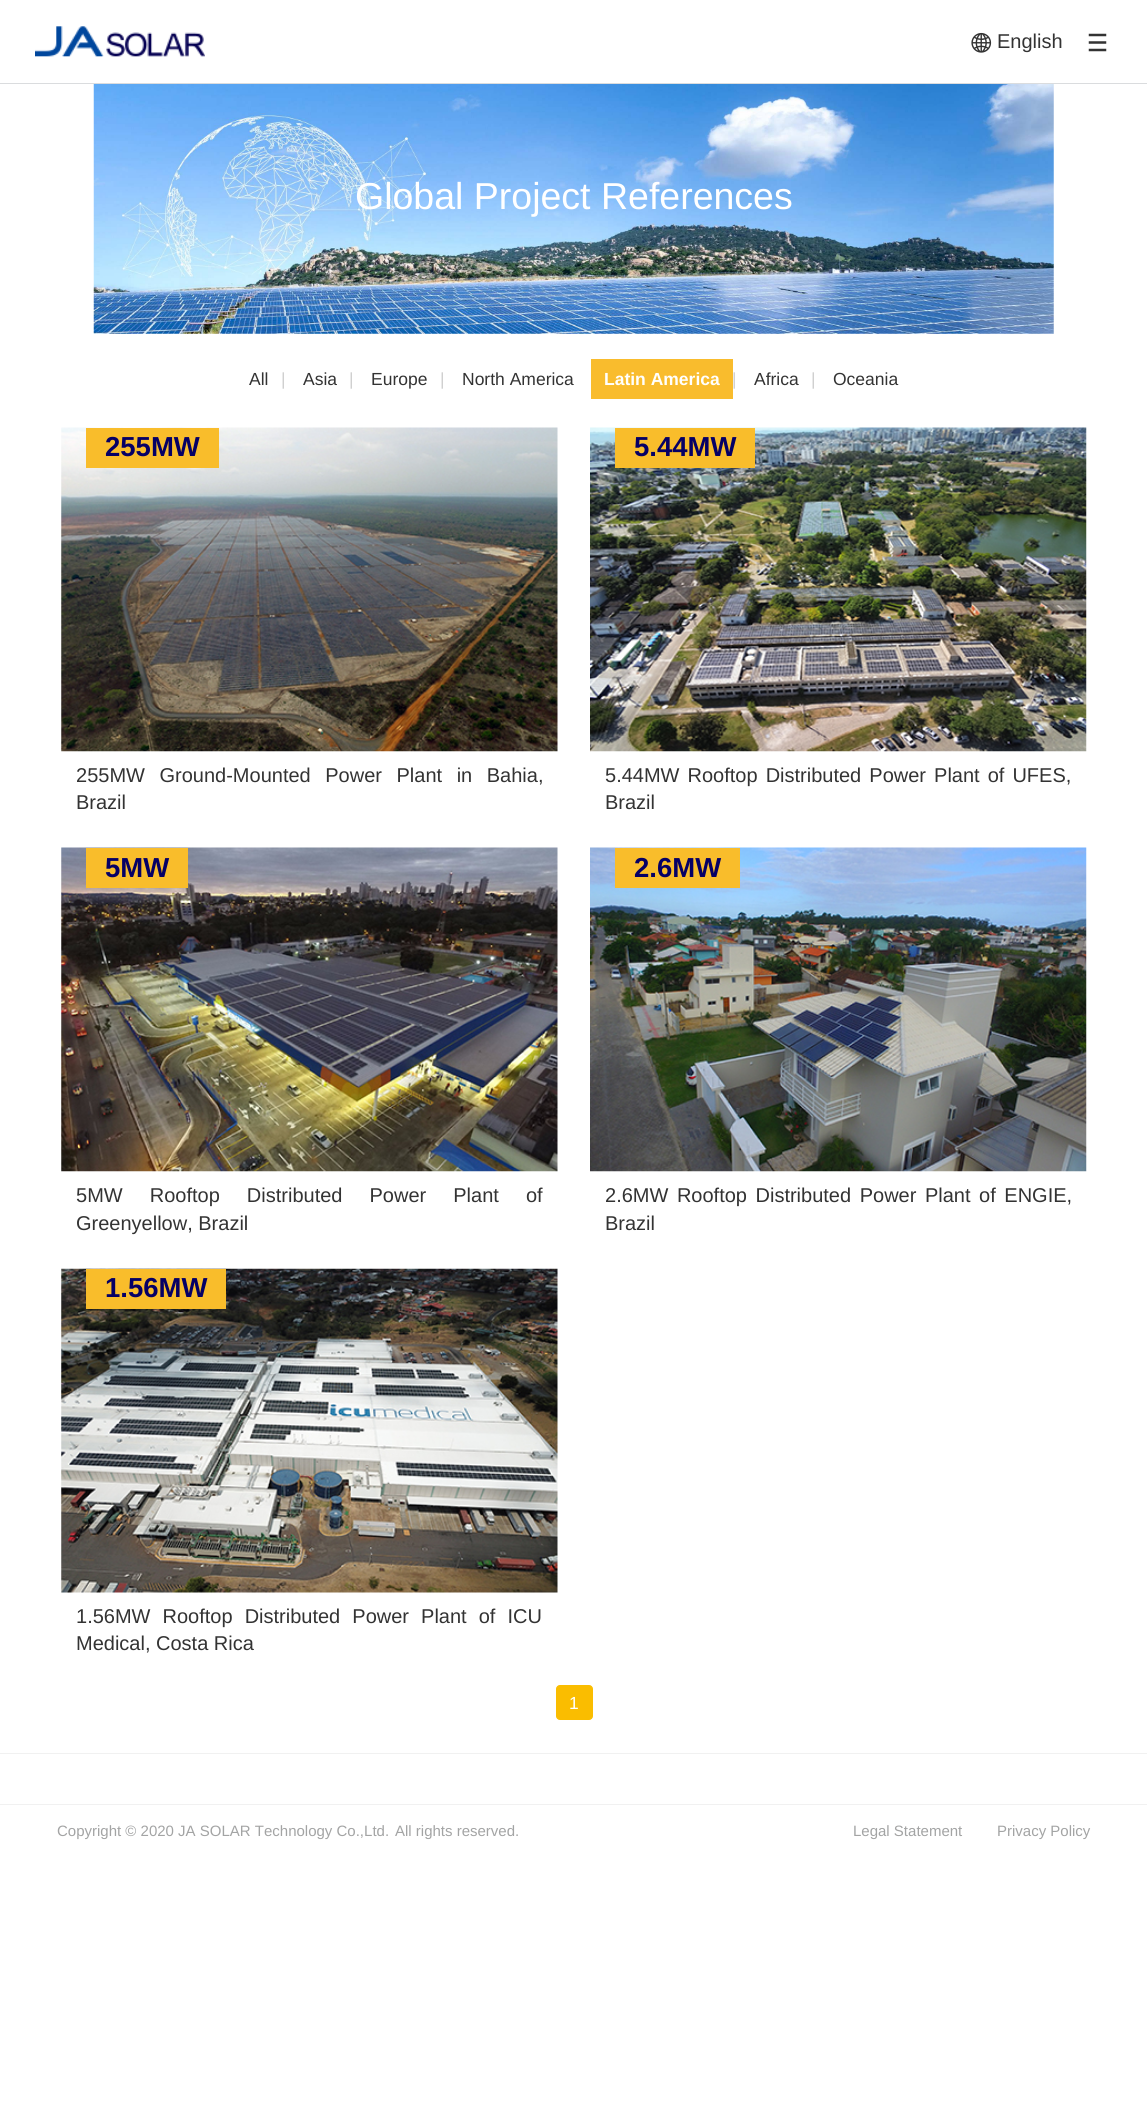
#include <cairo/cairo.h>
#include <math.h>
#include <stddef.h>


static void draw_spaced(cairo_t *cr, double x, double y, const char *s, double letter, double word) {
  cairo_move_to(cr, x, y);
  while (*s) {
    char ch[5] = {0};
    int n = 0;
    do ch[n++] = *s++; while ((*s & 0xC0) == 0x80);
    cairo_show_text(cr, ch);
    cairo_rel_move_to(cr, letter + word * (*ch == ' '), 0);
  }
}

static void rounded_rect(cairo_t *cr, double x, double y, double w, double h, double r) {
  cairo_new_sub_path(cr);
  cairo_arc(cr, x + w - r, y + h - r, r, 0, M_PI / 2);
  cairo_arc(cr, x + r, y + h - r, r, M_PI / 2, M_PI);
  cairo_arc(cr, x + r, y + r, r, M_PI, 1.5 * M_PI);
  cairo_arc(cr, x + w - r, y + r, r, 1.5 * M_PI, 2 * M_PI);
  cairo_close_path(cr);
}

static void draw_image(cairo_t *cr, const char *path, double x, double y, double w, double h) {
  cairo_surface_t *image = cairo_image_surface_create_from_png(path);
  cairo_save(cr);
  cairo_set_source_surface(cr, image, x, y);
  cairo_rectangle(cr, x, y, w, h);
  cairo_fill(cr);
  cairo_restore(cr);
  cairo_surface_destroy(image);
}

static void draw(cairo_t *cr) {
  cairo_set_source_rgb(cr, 1, 1, 1);
  cairo_paint(cr);
  cairo_set_source_rgb(cr, 218 / 255.0, 220 / 255.0, 222 / 255.0);
  cairo_rectangle(cr, 0, 83, 1147, 1);
  cairo_fill(cr);
  draw_image(cr, "images/1.png", 35, 26, 170, 31);
  draw_image(cr, "images/2.png", 971, 32, 21, 21);
  draw_image(cr, "images/3.png", 1088, 33, 19, 19);
  draw_image(cr, "images/4.png", 93, 84, 961, 250);
  cairo_set_source_rgb(cr, 249 / 255.0, 188 / 255.0, 45 / 255.0);
  cairo_rectangle(cr, 591, 359, 142, 40);
  cairo_fill(cr);
  draw_image(cr, "images/5.png", 61, 427, 497, 325);
  cairo_set_source_rgb(cr, 249 / 255.0, 189 / 255.0, 43 / 255.0);
  cairo_rectangle(cr, 86, 428, 133, 40);
  cairo_fill(cr);
  draw_image(cr, "images/6.png", 590, 427, 497, 325);
  cairo_rectangle(cr, 615, 428, 140, 40);
  cairo_fill(cr);
  draw_image(cr, "images/7.png", 61, 847, 497, 325);
  cairo_rectangle(cr, 86, 848, 102, 40);
  cairo_fill(cr);
  draw_image(cr, "images/8.png", 590, 847, 497, 325);
  cairo_rectangle(cr, 615, 848, 125, 40);
  cairo_fill(cr);
  draw_image(cr, "images/9.png", 61, 1268, 497, 325);
  cairo_rectangle(cr, 86, 1269, 140, 40);
  cairo_fill(cr);
  cairo_set_source_rgb(cr, 250 / 255.0, 189 / 255.0, 0);
  rounded_rect(cr, 556.5, 1685.5, 36, 34, 3.5);
  cairo_fill_preserve(cr);
  cairo_set_line_width(cr, 1);
  cairo_stroke(cr);
  cairo_set_source_rgb(cr, 241 / 255.0, 241 / 255.0, 241 / 255.0);
  cairo_rectangle(cr, 0, 1753, 1147, 1);
  cairo_fill(cr);
  cairo_rectangle(cr, 0, 1804, 1147, 1);
  cairo_fill(cr);
  cairo_select_font_face(cr, "Liberation Sans", CAIRO_FONT_SLANT_NORMAL, CAIRO_FONT_WEIGHT_NORMAL);
  cairo_set_font_size(cr, 20);
  cairo_set_source_rgb(cr, 51 / 255.0, 51 / 255.0, 51 / 255.0);
  cairo_move_to(cr, 997, 48);
  cairo_show_text(cr, "English");
  cairo_set_font_size(cr, 37.5);
  cairo_set_source_rgb(cr, 1, 1, 1);
  cairo_move_to(cr, 355, 209);
  cairo_show_text(cr, "Global Project References");
  cairo_set_font_size(cr, 17.5);
  cairo_set_source_rgb(cr, 51 / 255.0, 51 / 255.0, 51 / 255.0);
  cairo_move_to(cr, 249, 385);
  cairo_show_text(cr, "All");
  cairo_set_source_rgb(cr, 207 / 255.0, 207 / 255.0, 207 / 255.0);
  cairo_move_to(cr, 281, 385);
  cairo_show_text(cr, "|");
  cairo_set_source_rgb(cr, 51 / 255.0, 51 / 255.0, 51 / 255.0);
  cairo_move_to(cr, 303, 385);
  cairo_show_text(cr, "Asia");
  cairo_set_source_rgb(cr, 207 / 255.0, 207 / 255.0, 207 / 255.0);
  cairo_move_to(cr, 349, 385);
  cairo_show_text(cr, "|");
  cairo_set_source_rgb(cr, 51 / 255.0, 51 / 255.0, 51 / 255.0);
  cairo_move_to(cr, 371, 385);
  cairo_show_text(cr, "Europe");
  cairo_set_source_rgb(cr, 207 / 255.0, 207 / 255.0, 207 / 255.0);
  cairo_move_to(cr, 440, 385);
  cairo_show_text(cr, "|");
  cairo_set_source_rgb(cr, 51 / 255.0, 51 / 255.0, 51 / 255.0);
  cairo_move_to(cr, 462, 385);
  cairo_show_text(cr, "North America");
  cairo_select_font_face(cr, "Liberation Sans", CAIRO_FONT_SLANT_NORMAL, CAIRO_FONT_WEIGHT_BOLD);
  cairo_set_source_rgb(cr, 1, 1, 1);
  cairo_move_to(cr, 604, 385);
  cairo_show_text(cr, "Latin America");
  cairo_select_font_face(cr, "Liberation Sans", CAIRO_FONT_SLANT_NORMAL, CAIRO_FONT_WEIGHT_NORMAL);
  cairo_set_source_rgb(cr, 207 / 255.0, 207 / 255.0, 207 / 255.0);
  cairo_move_to(cr, 732, 385);
  cairo_show_text(cr, "|");
  cairo_set_source_rgb(cr, 51 / 255.0, 51 / 255.0, 51 / 255.0);
  cairo_move_to(cr, 754, 385);
  cairo_show_text(cr, "Africa");
  cairo_set_source_rgb(cr, 207 / 255.0, 207 / 255.0, 207 / 255.0);
  cairo_move_to(cr, 811, 385);
  cairo_show_text(cr, "|");
  cairo_set_source_rgb(cr, 51 / 255.0, 51 / 255.0, 51 / 255.0);
  cairo_move_to(cr, 833, 385);
  cairo_show_text(cr, "Oceania");
  cairo_select_font_face(cr, "Liberation Sans", CAIRO_FONT_SLANT_NORMAL, CAIRO_FONT_WEIGHT_BOLD);
  cairo_set_font_size(cr, 27.5);
  cairo_set_source_rgb(cr, 6 / 255.0, 0, 101 / 255.0);
  cairo_move_to(cr, 105, 456);
  cairo_show_text(cr, "255MW");
  cairo_select_font_face(cr, "Liberation Sans", CAIRO_FONT_SLANT_NORMAL, CAIRO_FONT_WEIGHT_NORMAL);
  cairo_set_font_size(cr, 20);
  cairo_set_source_rgb(cr, 51 / 255.0, 51 / 255.0, 51 / 255.0);
  draw_spaced(cr, 76, 782, "255MW Ground-Mounted Power Plant in Bahia,", 0, 9);
  cairo_move_to(cr, 76, 809);
  cairo_show_text(cr, "Brazil");
  cairo_select_font_face(cr, "Liberation Sans", CAIRO_FONT_SLANT_NORMAL, CAIRO_FONT_WEIGHT_BOLD);
  cairo_set_font_size(cr, 27.5);
  cairo_set_source_rgb(cr, 6 / 255.0, 0, 101 / 255.0);
  cairo_move_to(cr, 634, 456);
  cairo_show_text(cr, "5.44MW");
  cairo_select_font_face(cr, "Liberation Sans", CAIRO_FONT_SLANT_NORMAL, CAIRO_FONT_WEIGHT_NORMAL);
  cairo_set_font_size(cr, 20);
  cairo_set_source_rgb(cr, 51 / 255.0, 51 / 255.0, 51 / 255.0);
  draw_spaced(cr, 605, 782, "5.44MW Rooftop Distributed Power Plant of UFES,", 0, 2.5);
  cairo_move_to(cr, 605, 809);
  cairo_show_text(cr, "Brazil");
  cairo_select_font_face(cr, "Liberation Sans", CAIRO_FONT_SLANT_NORMAL, CAIRO_FONT_WEIGHT_BOLD);
  cairo_set_font_size(cr, 27.5);
  cairo_set_source_rgb(cr, 6 / 255.0, 0, 101 / 255.0);
  cairo_move_to(cr, 105, 877);
  cairo_show_text(cr, "5MW");
  cairo_select_font_face(cr, "Liberation Sans", CAIRO_FONT_SLANT_NORMAL, CAIRO_FONT_WEIGHT_NORMAL);
  cairo_set_font_size(cr, 20);
  cairo_set_source_rgb(cr, 51 / 255.0, 51 / 255.0, 51 / 255.0);
  draw_spaced(cr, 76, 1202, "5MW Rooftop Distributed Power Plant of", 0, 21.5);
  cairo_move_to(cr, 76, 1230);
  cairo_show_text(cr, "Greenyellow, Brazil");
  cairo_select_font_face(cr, "Liberation Sans", CAIRO_FONT_SLANT_NORMAL, CAIRO_FONT_WEIGHT_BOLD);
  cairo_set_font_size(cr, 27.5);
  cairo_set_source_rgb(cr, 6 / 255.0, 0, 101 / 255.0);
  cairo_move_to(cr, 634, 877);
  cairo_show_text(cr, "2.6MW");
  cairo_select_font_face(cr, "Liberation Sans", CAIRO_FONT_SLANT_NORMAL, CAIRO_FONT_WEIGHT_NORMAL);
  cairo_set_font_size(cr, 20);
  cairo_set_source_rgb(cr, 51 / 255.0, 51 / 255.0, 51 / 255.0);
  draw_spaced(cr, 605, 1202, "2.6MW Rooftop Distributed Power Plant of ENGIE,", 0, 3);
  cairo_move_to(cr, 605, 1230);
  cairo_show_text(cr, "Brazil");
  cairo_select_font_face(cr, "Liberation Sans", CAIRO_FONT_SLANT_NORMAL, CAIRO_FONT_WEIGHT_BOLD);
  cairo_set_font_size(cr, 27.5);
  cairo_set_source_rgb(cr, 6 / 255.0, 0, 101 / 255.0);
  cairo_move_to(cr, 105, 1297);
  cairo_show_text(cr, "1.56MW");
  cairo_select_font_face(cr, "Liberation Sans", CAIRO_FONT_SLANT_NORMAL, CAIRO_FONT_WEIGHT_NORMAL);
  cairo_set_font_size(cr, 20);
  cairo_set_source_rgb(cr, 51 / 255.0, 51 / 255.0, 51 / 255.0);
  draw_spaced(cr, 76, 1623, "1.56MW Rooftop Distributed Power Plant of ICU", 0, 6.5);
  cairo_move_to(cr, 76, 1650);
  cairo_show_text(cr, "Medical, Costa Rica");
  cairo_set_font_size(cr, 17.5);
  cairo_set_source_rgb(cr, 1, 1, 1);
  cairo_move_to(cr, 569, 1709);
  cairo_show_text(cr, "1");
  cairo_set_font_size(cr, 15);
  cairo_set_source_rgb(cr, 163 / 255.0, 164 / 255.0, 164 / 255.0);
  cairo_move_to(cr, 57, 1836);
  cairo_show_text(cr, "Copyright © 2020 JA SOLAR Technology Co.,Ltd.");
  cairo_move_to(cr, 395, 1836);
  cairo_show_text(cr, "All rights reserved.");
  cairo_move_to(cr, 853, 1836);
  cairo_show_text(cr, "Legal Statement");
  cairo_move_to(cr, 997, 1836);
  cairo_show_text(cr, "Privacy Policy");
}

int main(void) {
  cairo_surface_t *surface = cairo_image_surface_create(CAIRO_FORMAT_RGB24, 1147, 2117);
  cairo_t *cr = cairo_create(surface);
  cairo_font_options_t *options = cairo_font_options_create();
  cairo_font_options_set_hint_metrics(options, CAIRO_HINT_METRICS_OFF);
  cairo_font_options_set_hint_style(options, CAIRO_HINT_STYLE_NONE);
  cairo_set_font_options(cr, options);
  cairo_set_miter_limit(cr, 4);
  draw(cr);
  cairo_surface_write_to_png(surface, "out.png");
  cairo_font_options_destroy(options);
  cairo_destroy(cr);
  cairo_surface_destroy(surface);
  return 0;
}
